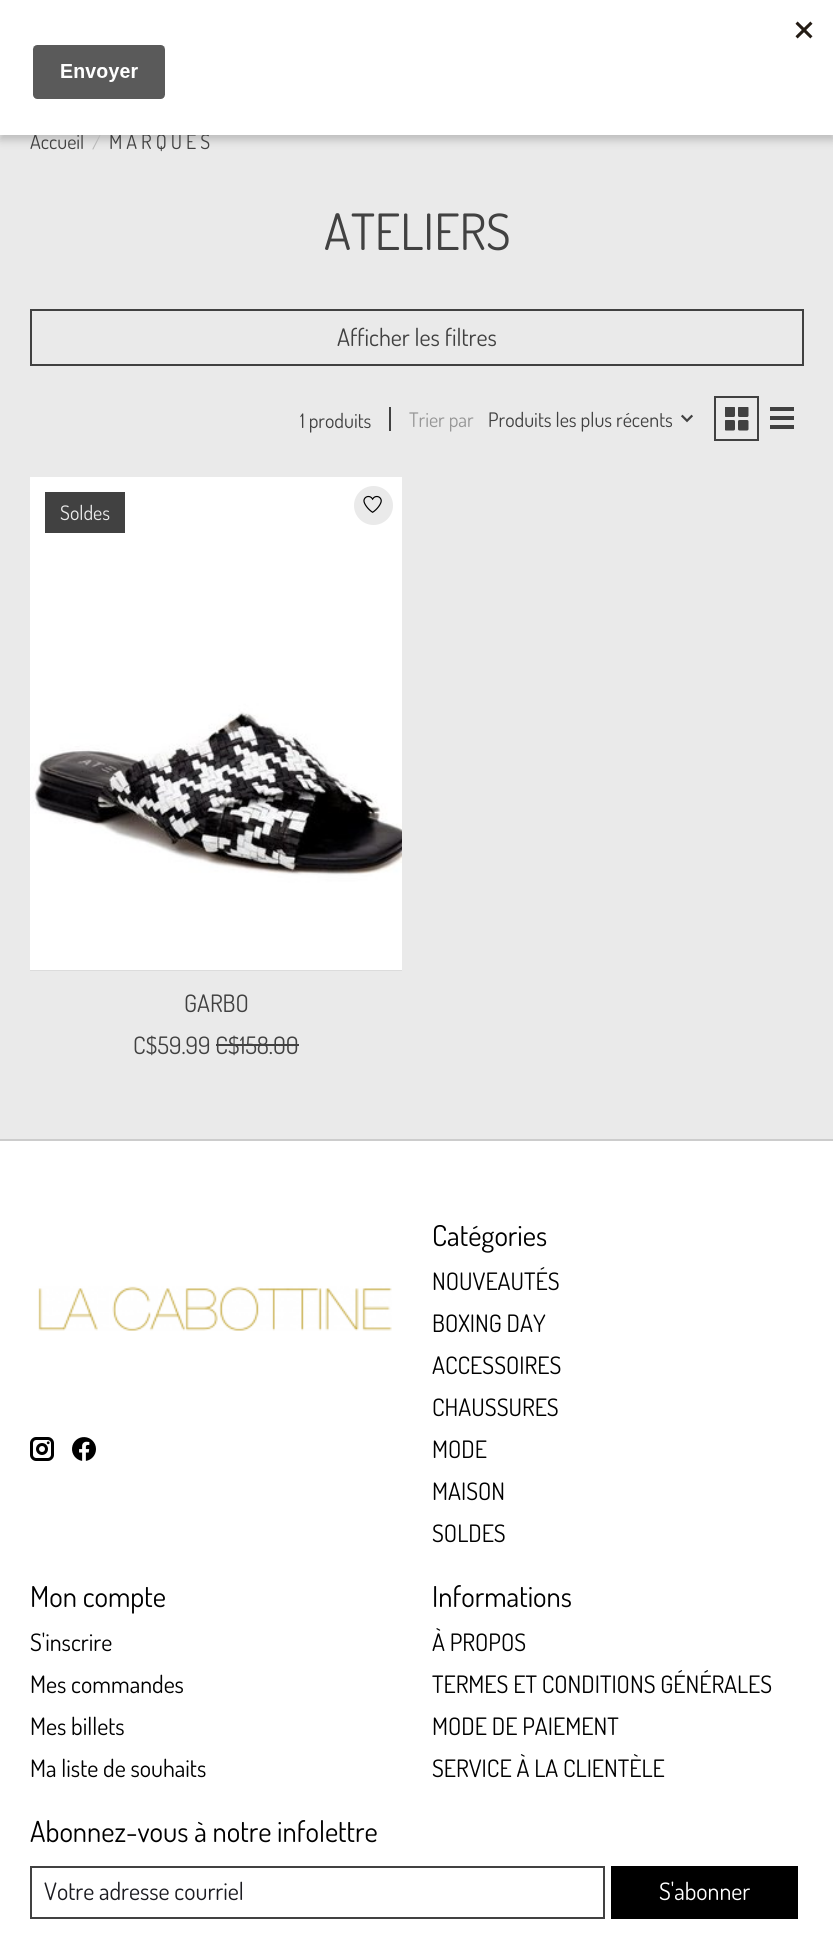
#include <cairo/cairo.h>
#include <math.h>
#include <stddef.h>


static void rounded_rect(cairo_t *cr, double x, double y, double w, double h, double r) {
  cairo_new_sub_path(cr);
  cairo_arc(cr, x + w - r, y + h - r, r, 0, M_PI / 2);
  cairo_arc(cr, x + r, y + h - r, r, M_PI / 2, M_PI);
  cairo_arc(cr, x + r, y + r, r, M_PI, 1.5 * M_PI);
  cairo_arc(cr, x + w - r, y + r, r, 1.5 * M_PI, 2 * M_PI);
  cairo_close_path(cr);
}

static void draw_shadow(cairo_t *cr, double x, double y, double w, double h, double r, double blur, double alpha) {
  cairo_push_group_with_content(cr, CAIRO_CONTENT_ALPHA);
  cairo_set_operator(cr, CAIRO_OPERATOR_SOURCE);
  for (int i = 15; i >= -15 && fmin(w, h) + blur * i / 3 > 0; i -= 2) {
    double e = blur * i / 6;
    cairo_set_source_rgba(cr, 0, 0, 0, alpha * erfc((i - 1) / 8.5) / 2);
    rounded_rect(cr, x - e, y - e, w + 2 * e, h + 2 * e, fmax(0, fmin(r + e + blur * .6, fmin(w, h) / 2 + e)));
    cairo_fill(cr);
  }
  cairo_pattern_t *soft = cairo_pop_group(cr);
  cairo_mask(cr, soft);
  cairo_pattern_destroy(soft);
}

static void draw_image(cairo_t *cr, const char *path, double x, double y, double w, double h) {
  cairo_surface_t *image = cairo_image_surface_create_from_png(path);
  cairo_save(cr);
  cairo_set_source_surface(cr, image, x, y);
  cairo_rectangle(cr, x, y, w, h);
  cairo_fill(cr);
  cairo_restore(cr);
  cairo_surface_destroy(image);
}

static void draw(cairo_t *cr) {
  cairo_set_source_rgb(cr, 234 / 255.0, 234 / 255.0, 234 / 255.0);
  cairo_paint(cr);
  cairo_set_source_rgb(cr, 0, 0, 0);
  draw_shadow(cr, 0, 5, 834, 135, 0, 4.5, 0.2);
  cairo_rectangle(cr, 31, 310, 772, 55);
  cairo_set_source_rgb(cr, 65 / 255.0, 65 / 255.0, 65 / 255.0);
  cairo_stroke(cr);
  cairo_rectangle(cr, 389, 407, 2, 24);
  cairo_fill(cr);
  draw_image(cr, "images/2.png", 681, 414, 12, 9);
  cairo_rectangle(cr, 715, 397, 43, 43);
  cairo_stroke(cr);
  draw_image(cr, "images/3.png", 725, 407, 24, 24);
  cairo_rectangle(cr, 770, 407, 24, 4);
  cairo_fill(cr);
  cairo_rectangle(cr, 770, 416, 24, 4);
  cairo_fill(cr);
  cairo_rectangle(cr, 770, 425, 24, 4);
  cairo_fill(cr);
  cairo_set_source_rgb(cr, 208 / 255.0, 208 / 255.0, 208 / 255.0);
  cairo_rectangle(cr, 30, 970, 372, 1);
  cairo_fill(cr);
  draw_image(cr, "images/4.png", 30, 477, 372, 494);
  cairo_set_source_rgb(cr, 234 / 255.0, 234 / 255.0, 234 / 255.0);
  cairo_arc(cr, 373.5, 505.5, 19.5, 0, 2 * M_PI);
  cairo_fill(cr);
  draw_image(cr, "images/5.png", 363, 495, 19, 18);
  cairo_set_source_rgb(cr, 65 / 255.0, 65 / 255.0, 65 / 255.0);
  cairo_rectangle(cr, 45, 492, 80, 41);
  cairo_fill(cr);
  cairo_rectangle(cr, 216, 1044, 83, 2);
  cairo_fill(cr);
  cairo_set_source_rgb(cr, 1, 1, 1);
  cairo_rectangle(cr, 0, 1141, 833, 797);
  cairo_fill(cr);
  cairo_set_source_rgb(cr, 204 / 255.0, 204 / 255.0, 204 / 255.0);
  cairo_rectangle(cr, 0, 1139, 833, 2);
  cairo_fill(cr);
  draw_image(cr, "images/6.png", 38, 1286, 354, 45);
  draw_image(cr, "images/7.png", 30, 1437, 24, 24);
  draw_image(cr, "images/8.png", 72, 1437, 24, 24);
  cairo_rectangle(cr, 31, 1867, 573, 51);
  cairo_set_source_rgb(cr, 65 / 255.0, 65 / 255.0, 65 / 255.0);
  cairo_stroke(cr);
  cairo_set_source_rgb(cr, 0, 0, 0);
  cairo_rectangle(cr, 611, 1866, 187, 53);
  cairo_fill(cr);
  cairo_select_font_face(cr, "Dosis", CAIRO_FONT_SLANT_NORMAL, CAIRO_FONT_WEIGHT_NORMAL);
  cairo_set_font_size(cr, 20);
  cairo_set_source_rgb(cr, 65 / 255.0, 65 / 255.0, 65 / 255.0);
  cairo_move_to(cr, 30, 149);
  cairo_show_text(cr, "Accueil");
  cairo_set_source_rgb(cr, 183 / 255.0, 183 / 255.0, 183 / 255.0);
  cairo_move_to(cr, 92, 149);
  cairo_show_text(cr, "/");
  cairo_set_source_rgb(cr, 65 / 255.0, 65 / 255.0, 65 / 255.0);
  cairo_move_to(cr, 109, 149);
  cairo_show_text(cr, "M A R Q U E S");
  cairo_set_source_rgb(cr, 1, 1, 1);
  cairo_rectangle(cr, 0, 0, 833, 135);
  cairo_fill(cr);
  draw_image(cr, "images/1.png", 32, 21, 781, 78);
  cairo_set_font_size(cr, 50);
  cairo_set_source_rgb(cr, 65 / 255.0, 65 / 255.0, 65 / 255.0);
  cairo_move_to(cr, 324, 250);
  cairo_show_text(cr, "ATELIERS");
  cairo_set_font_size(cr, 24);
  cairo_move_to(cr, 337, 346);
  cairo_show_text(cr, "Afficher les filtres");
  cairo_set_font_size(cr, 20);
  cairo_move_to(cr, 300, 428);
  cairo_show_text(cr, "1 produits");
  cairo_set_source_rgb(cr, 150 / 255.0, 150 / 255.0, 150 / 255.0);
  cairo_move_to(cr, 409, 427);
  cairo_show_text(cr, "Trier par");
  cairo_set_source_rgb(cr, 65 / 255.0, 65 / 255.0, 65 / 255.0);
  cairo_move_to(cr, 488, 427);
  cairo_show_text(cr, "Produits les plus récents");
  cairo_set_source_rgb(cr, 234 / 255.0, 234 / 255.0, 234 / 255.0);
  cairo_move_to(cr, 60, 520);
  cairo_show_text(cr, "Soldes");
  cairo_set_font_size(cr, 24);
  cairo_set_source_rgb(cr, 65 / 255.0, 65 / 255.0, 65 / 255.0);
  cairo_move_to(cr, 184, 1012);
  cairo_show_text(cr, "GARBO");
  cairo_move_to(cr, 133, 1054);
  cairo_show_text(cr, "C$59.99 C$158.00");
  cairo_set_font_size(cr, 28.75);
  cairo_set_source_rgb(cr, 0, 0, 0);
  cairo_move_to(cr, 432, 1246);
  cairo_show_text(cr, "Catégories");
  cairo_set_font_size(cr, 24);
  cairo_move_to(cr, 432, 1290);
  cairo_show_text(cr, "NOUVEAUTÉS");
  cairo_move_to(cr, 432, 1332);
  cairo_show_text(cr, "BOXING DAY");
  cairo_move_to(cr, 432, 1374);
  cairo_show_text(cr, "ACCESSOIRES");
  cairo_move_to(cr, 432, 1416);
  cairo_show_text(cr, "CHAUSSURES");
  cairo_move_to(cr, 432, 1458);
  cairo_show_text(cr, "MODE");
  cairo_move_to(cr, 432, 1500);
  cairo_show_text(cr, "MAISON");
  cairo_move_to(cr, 432, 1542);
  cairo_show_text(cr, "SOLDES");
  cairo_set_font_size(cr, 28.75);
  cairo_move_to(cr, 30, 1607);
  cairo_show_text(cr, "Mon compte");
  cairo_set_font_size(cr, 24);
  cairo_move_to(cr, 30, 1651);
  cairo_show_text(cr, "S'inscrire");
  cairo_move_to(cr, 30, 1693);
  cairo_show_text(cr, "Mes commandes");
  cairo_move_to(cr, 30, 1735);
  cairo_show_text(cr, "Mes billets");
  cairo_move_to(cr, 30, 1777);
  cairo_show_text(cr, "Ma liste de souhaits");
  cairo_set_font_size(cr, 28.75);
  cairo_move_to(cr, 432, 1607);
  cairo_show_text(cr, "Informations");
  cairo_set_font_size(cr, 24);
  cairo_move_to(cr, 432, 1651);
  cairo_show_text(cr, "À PROPOS");
  cairo_move_to(cr, 432, 1693);
  cairo_show_text(cr, "TERMES ET CONDITIONS GÉNÉRALES");
  cairo_move_to(cr, 432, 1735);
  cairo_show_text(cr, "MODE DE PAIEMENT");
  cairo_move_to(cr, 432, 1777);
  cairo_show_text(cr, "SERVICE À LA CLIENTÈLE");
  cairo_set_font_size(cr, 28.75);
  cairo_move_to(cr, 30, 1842);
  cairo_show_text(cr, "Abonnez-vous à notre infolettre");
  cairo_set_font_size(cr, 24);
  cairo_set_source_rgb(cr, 28 / 255.0, 28 / 255.0, 33 / 255.0);
  cairo_move_to(cr, 44, 1900);
  cairo_show_text(cr, "Votre adresse courriel");
  cairo_set_source_rgb(cr, 1, 1, 1);
  cairo_move_to(cr, 659, 1900);
  cairo_show_text(cr, "S'abonner");
}

int main(void) {
  cairo_surface_t *surface = cairo_image_surface_create(CAIRO_FORMAT_RGB24, 833, 1938);
  cairo_t *cr = cairo_create(surface);
  cairo_font_options_t *options = cairo_font_options_create();
  cairo_font_options_set_hint_metrics(options, CAIRO_HINT_METRICS_OFF);
  cairo_font_options_set_hint_style(options, CAIRO_HINT_STYLE_NONE);
  cairo_set_font_options(cr, options);
  cairo_set_miter_limit(cr, 4);
  draw(cr);
  cairo_surface_write_to_png(surface, "out.png");
  cairo_font_options_destroy(options);
  cairo_destroy(cr);
  cairo_surface_destroy(surface);
  return 0;
}
